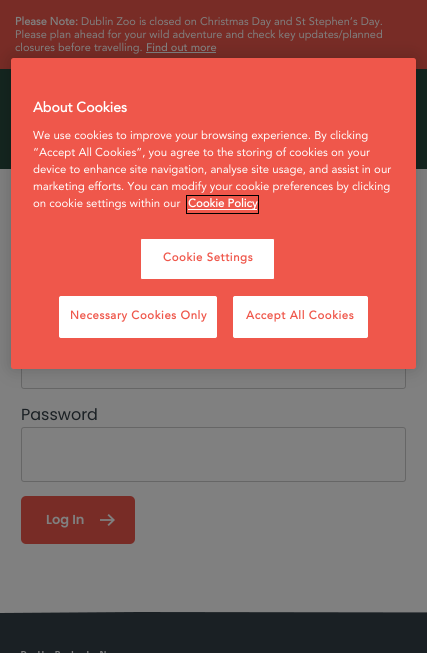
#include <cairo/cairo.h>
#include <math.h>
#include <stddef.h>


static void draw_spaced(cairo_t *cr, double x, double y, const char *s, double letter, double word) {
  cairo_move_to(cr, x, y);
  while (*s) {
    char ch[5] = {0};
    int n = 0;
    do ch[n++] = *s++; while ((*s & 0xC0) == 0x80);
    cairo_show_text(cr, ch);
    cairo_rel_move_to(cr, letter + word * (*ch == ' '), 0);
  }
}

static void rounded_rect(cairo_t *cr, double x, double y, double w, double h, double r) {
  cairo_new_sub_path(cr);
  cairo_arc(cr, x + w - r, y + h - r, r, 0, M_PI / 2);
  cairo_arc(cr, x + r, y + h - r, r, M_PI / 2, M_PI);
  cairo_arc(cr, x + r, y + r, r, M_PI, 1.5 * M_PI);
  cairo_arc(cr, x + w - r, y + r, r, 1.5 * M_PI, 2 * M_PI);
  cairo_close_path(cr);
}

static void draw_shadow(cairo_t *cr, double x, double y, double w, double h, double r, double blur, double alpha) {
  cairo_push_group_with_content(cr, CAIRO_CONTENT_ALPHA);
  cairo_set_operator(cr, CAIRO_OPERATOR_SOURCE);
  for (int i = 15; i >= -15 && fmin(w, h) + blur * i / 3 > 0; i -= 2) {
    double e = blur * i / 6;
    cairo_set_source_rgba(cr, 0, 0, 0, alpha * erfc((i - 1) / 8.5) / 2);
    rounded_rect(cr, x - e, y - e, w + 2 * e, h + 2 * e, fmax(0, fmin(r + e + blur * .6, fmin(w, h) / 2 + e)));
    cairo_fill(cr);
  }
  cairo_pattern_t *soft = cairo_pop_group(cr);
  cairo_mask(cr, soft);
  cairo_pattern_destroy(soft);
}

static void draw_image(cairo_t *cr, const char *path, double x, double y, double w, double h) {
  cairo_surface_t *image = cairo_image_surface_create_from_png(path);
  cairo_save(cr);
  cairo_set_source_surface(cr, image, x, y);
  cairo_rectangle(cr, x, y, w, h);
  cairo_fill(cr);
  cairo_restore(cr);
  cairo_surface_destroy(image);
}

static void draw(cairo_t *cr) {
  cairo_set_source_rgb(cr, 128 / 255.0, 128 / 255.0, 128 / 255.0);
  cairo_paint(cr);
  cairo_set_source_rgb(cr, 120 / 255.0, 44 / 255.0, 38 / 255.0);
  cairo_rectangle(cr, 0, 0, 427, 69);
  cairo_fill(cr);
  cairo_set_source_rgb(cr, 128 / 255.0, 128 / 255.0, 128 / 255.0);
  cairo_rectangle(cr, 146, 52, 70, 1);
  cairo_fill(cr);
  cairo_set_source_rgb(cr, 20 / 255.0, 37 / 255.0, 31 / 255.0);
  cairo_rectangle(cr, 0, 69, 427, 100);
  cairo_fill(cr);
  rounded_rect(cr, 21.5, 334.5, 384, 54, 2.5);
  cairo_set_source_rgb(cr, 102 / 255.0, 102 / 255.0, 102 / 255.0);
  cairo_set_line_width(cr, 1);
  cairo_stroke(cr);
  cairo_set_source_rgb(cr, 0, 0, 0);
  draw_shadow(cr, 11, 58, 405, 311, 2.5, 9, 0.2);
  cairo_set_source_rgb(cr, 239 / 255.0, 87 / 255.0, 75 / 255.0);
  rounded_rect(cr, 11, 58, 405, 311, 2.5);
  cairo_fill(cr);
  cairo_set_source_rgb(cr, 1, 1, 1);
  cairo_rectangle(cr, 188, 209, 69, 1);
  cairo_fill(cr);
  cairo_rectangle(cr, 186.5, 195.5, 72, 18);
  cairo_set_source_rgb(cr, 0, 0, 0);
  cairo_stroke(cr);
  cairo_set_source_rgb(cr, 1, 1, 1);
  rounded_rect(cr, 140.5, 238.5, 134, 41, 1.5);
  cairo_fill_preserve(cr);
  cairo_set_source_rgb(cr, 239 / 255.0, 87 / 255.0, 75 / 255.0);
  cairo_stroke(cr);
  cairo_set_source_rgb(cr, 1, 1, 1);
  rounded_rect(cr, 59.5, 296.5, 157, 41, 1.5);
  cairo_fill_preserve(cr);
  cairo_stroke(cr);
  rounded_rect(cr, 233.5, 296.5, 134, 41, 1.5);
  cairo_fill_preserve(cr);
  cairo_stroke(cr);
  rounded_rect(cr, 21.5, 427.5, 384, 54, 2.5);
  cairo_set_source_rgb(cr, 102 / 255.0, 102 / 255.0, 102 / 255.0);
  cairo_stroke(cr);
  cairo_set_source_rgb(cr, 120 / 255.0, 44 / 255.0, 38 / 255.0);
  rounded_rect(cr, 21, 496, 114, 48, 5);
  cairo_fill(cr);
  draw_image(cr, "images/1.png", 100, 514, 15, 12);
  cairo_set_source_rgb(cr, 26 / 255.0, 32 / 255.0, 36 / 255.0);
  cairo_set_fill_rule(cr, CAIRO_FILL_RULE_EVEN_ODD);
  cairo_new_path(cr);
  cairo_move_to(cr, 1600, 613);
  cairo_line_to(cr, 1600, 620);
  cairo_line_to(cr, 0, 620);
  cairo_line_to(cr, 0, 613);
  cairo_line_to(cr, 138, 612);
  cairo_line_to(cr, 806, 613);
  cairo_line_to(cr, 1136, 612);
  cairo_line_to(cr, 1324, 614);
  cairo_close_path(cr);
  cairo_fill(cr);
  cairo_rectangle(cr, 0, 620, 427, 33);
  cairo_fill(cr);
  draw_image(cr, "images/2.png", 21, 651, 85, 2);
  cairo_select_font_face(cr, "Avenir", CAIRO_FONT_SLANT_NORMAL, CAIRO_FONT_WEIGHT_BOLD);
  cairo_set_font_size(cr, 11);
  cairo_set_source_rgb(cr, 128 / 255.0, 128 / 255.0, 128 / 255.0);
  cairo_move_to(cr, 15, 25);
  cairo_show_text(cr, "Please Note:");
  cairo_select_font_face(cr, "Avenir", CAIRO_FONT_SLANT_NORMAL, CAIRO_FONT_WEIGHT_NORMAL);
  cairo_move_to(cr, 81, 25);
  cairo_show_text(cr, "Dublin Zoo is closed on Christmas Day and St Stephen’s Day.");
  cairo_move_to(cr, 15, 38);
  cairo_show_text(cr, "Please plan ahead for your wild adventure and check key updates/planned");
  cairo_move_to(cr, 15, 51);
  cairo_show_text(cr, "closures before travelling.");
  cairo_select_font_face(cr, "Avenir Medium", CAIRO_FONT_SLANT_NORMAL, CAIRO_FONT_WEIGHT_NORMAL);
  cairo_move_to(cr, 146, 51);
  cairo_show_text(cr, "Find out more");
  cairo_select_font_face(cr, "Avenir", CAIRO_FONT_SLANT_NORMAL, CAIRO_FONT_WEIGHT_BOLD);
  cairo_set_font_size(cr, 14);
  cairo_set_source_rgb(cr, 1, 1, 1);
  cairo_move_to(cr, 33, 112);
  cairo_show_text(cr, "About Cookies");
  cairo_select_font_face(cr, "Avenir", CAIRO_FONT_SLANT_NORMAL, CAIRO_FONT_WEIGHT_NORMAL);
  cairo_set_font_size(cr, 11.4);
  cairo_move_to(cr, 33, 139);
  cairo_show_text(cr, "We use cookies to improve your browsing experience. By clicking");
  cairo_move_to(cr, 33, 156);
  cairo_show_text(cr, "“Accept All Cookies”, you agree to the storing of cookies on your");
  cairo_move_to(cr, 33, 173);
  cairo_show_text(cr, "device to enhance site navigation, analyse site usage, and assist in our");
  cairo_move_to(cr, 33, 190);
  cairo_show_text(cr, "marketing efforts. You can modify your cookie preferences by clicking");
  cairo_move_to(cr, 33, 207);
  cairo_show_text(cr, "on cookie settings within our");
  cairo_select_font_face(cr, "Avenir", CAIRO_FONT_SLANT_NORMAL, CAIRO_FONT_WEIGHT_BOLD);
  cairo_move_to(cr, 188, 207);
  cairo_show_text(cr, "Cookie Policy");
  cairo_set_source_rgb(cr, 239 / 255.0, 87 / 255.0, 75 / 255.0);
  draw_spaced(cr, 163, 261, "Cookie Settings", 0.6, 0);
  draw_spaced(cr, 70, 319, "Necessary Cookies Only", 0.6, 0);
  draw_spaced(cr, 246, 319, "Accept All Cookies", 0.6, 0);
  cairo_select_font_face(cr, "Poppins", CAIRO_FONT_SLANT_NORMAL, CAIRO_FONT_WEIGHT_NORMAL);
  cairo_set_font_size(cr, 16);
  cairo_set_source_rgb(cr, 26 / 255.0, 32 / 255.0, 36 / 255.0);
  cairo_move_to(cr, 21, 420);
  cairo_show_text(cr, "Password");
  cairo_select_font_face(cr, "Poppins SemiBold", CAIRO_FONT_SLANT_NORMAL, CAIRO_FONT_WEIGHT_NORMAL);
  cairo_set_font_size(cr, 13);
  cairo_set_source_rgb(cr, 128 / 255.0, 128 / 255.0, 128 / 255.0);
  cairo_move_to(cr, 46, 524);
  cairo_show_text(cr, "Log In");
}

int main(void) {
  cairo_surface_t *surface = cairo_image_surface_create(CAIRO_FORMAT_RGB24, 427, 653);
  cairo_t *cr = cairo_create(surface);
  cairo_font_options_t *options = cairo_font_options_create();
  cairo_font_options_set_hint_metrics(options, CAIRO_HINT_METRICS_OFF);
  cairo_font_options_set_hint_style(options, CAIRO_HINT_STYLE_NONE);
  cairo_set_font_options(cr, options);
  cairo_set_miter_limit(cr, 4);
  draw(cr);
  cairo_surface_write_to_png(surface, "out.png");
  cairo_font_options_destroy(options);
  cairo_destroy(cr);
  cairo_surface_destroy(surface);
  return 0;
}
